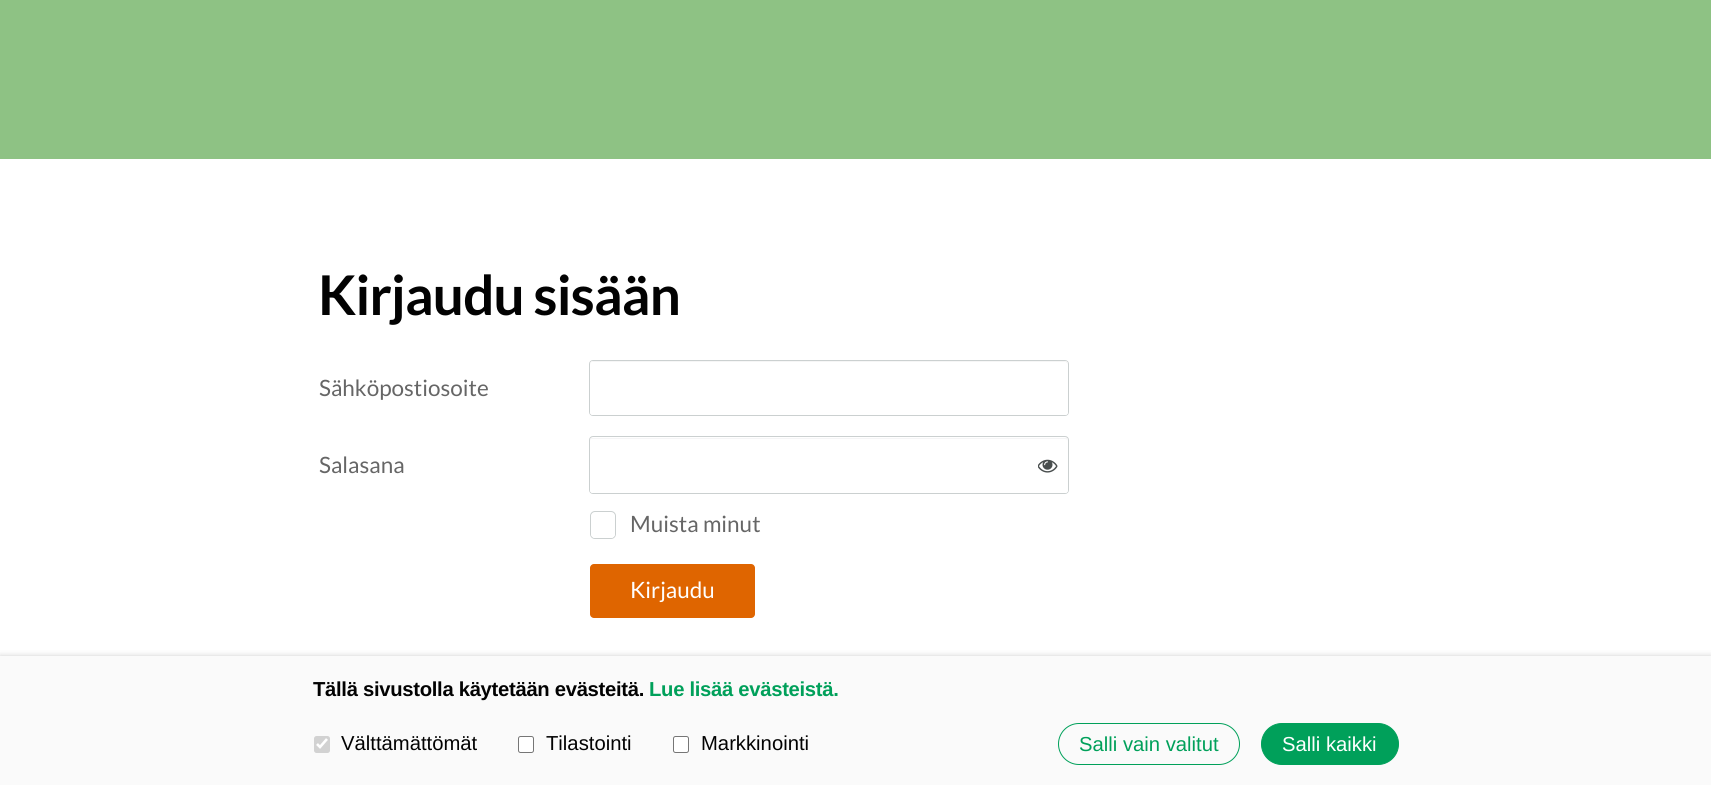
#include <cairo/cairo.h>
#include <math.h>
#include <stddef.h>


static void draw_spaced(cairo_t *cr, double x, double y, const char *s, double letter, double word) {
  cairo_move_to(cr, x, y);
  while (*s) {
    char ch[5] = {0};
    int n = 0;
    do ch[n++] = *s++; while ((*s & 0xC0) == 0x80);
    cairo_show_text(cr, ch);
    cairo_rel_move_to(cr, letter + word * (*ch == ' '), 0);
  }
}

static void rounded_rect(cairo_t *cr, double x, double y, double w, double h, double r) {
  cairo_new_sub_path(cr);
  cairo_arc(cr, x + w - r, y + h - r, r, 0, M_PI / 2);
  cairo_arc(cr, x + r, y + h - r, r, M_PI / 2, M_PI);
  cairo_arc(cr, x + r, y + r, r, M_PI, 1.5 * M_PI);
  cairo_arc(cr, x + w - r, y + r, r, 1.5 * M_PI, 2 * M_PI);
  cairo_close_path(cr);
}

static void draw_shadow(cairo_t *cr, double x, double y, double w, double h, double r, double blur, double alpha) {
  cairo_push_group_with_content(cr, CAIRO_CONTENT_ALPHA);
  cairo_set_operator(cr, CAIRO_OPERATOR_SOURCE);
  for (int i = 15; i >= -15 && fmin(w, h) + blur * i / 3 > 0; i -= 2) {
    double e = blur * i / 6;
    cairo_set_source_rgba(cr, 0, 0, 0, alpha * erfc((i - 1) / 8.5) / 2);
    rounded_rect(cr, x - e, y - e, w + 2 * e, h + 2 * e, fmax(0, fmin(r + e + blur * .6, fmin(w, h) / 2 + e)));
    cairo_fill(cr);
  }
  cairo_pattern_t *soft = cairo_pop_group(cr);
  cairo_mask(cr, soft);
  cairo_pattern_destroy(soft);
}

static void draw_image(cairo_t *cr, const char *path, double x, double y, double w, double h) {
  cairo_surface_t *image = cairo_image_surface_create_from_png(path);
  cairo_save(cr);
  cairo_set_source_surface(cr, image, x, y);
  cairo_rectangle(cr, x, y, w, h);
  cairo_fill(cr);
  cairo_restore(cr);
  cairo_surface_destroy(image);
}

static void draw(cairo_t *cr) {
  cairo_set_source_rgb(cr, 1, 1, 1);
  cairo_paint(cr);
  cairo_set_source_rgb(cr, 142 / 255.0, 194 / 255.0, 132 / 255.0);
  cairo_rectangle(cr, 0, 0, 1711, 159);
  cairo_fill(cr);
  rounded_rect(cr, 589.5, 360.5, 479, 55, 3.5);
  cairo_set_source_rgb(cr, 203 / 255.0, 208 / 255.0, 208 / 255.0);
  cairo_set_line_width(cr, 1);
  cairo_stroke(cr);
  cairo_set_source_rgb(cr, 1, 1, 1);
  rounded_rect(cr, 590, 361, 478, 54, 2.5);
  cairo_fill(cr);
  cairo_set_source_rgba(cr, 63 / 255.0, 63 / 255.0, 68 / 255.0, 0.05);
  cairo_new_path(cr);
  cairo_move_to(cr, 592, 362);
  cairo_line_to(cr, 1065, 362);
  cairo_curve_to(cr, 1066, 362, 1068, 364, 1068, 365);
  cairo_curve_to(cr, 1068, 363, 1068, 361, 1066, 361);
  cairo_line_to(cr, 592, 361);
  cairo_line_to(cr, 590, 362);
  cairo_line_to(cr, 590, 365);
  cairo_curve_to(cr, 590, 364, 591, 362, 592, 362);
  cairo_close_path(cr);
  cairo_fill(cr);
  rounded_rect(cr, 589.5, 436.5, 479, 57, 3.5);
  cairo_set_source_rgb(cr, 203 / 255.0, 208 / 255.0, 208 / 255.0);
  cairo_stroke(cr);
  cairo_set_source_rgb(cr, 1, 1, 1);
  rounded_rect(cr, 590, 438, 478, 55, 2.5);
  cairo_fill(cr);
  cairo_set_source_rgb(cr, 245 / 255.0, 245 / 255.0, 246 / 255.0);
  cairo_new_path(cr);
  cairo_move_to(cr, 592, 439);
  cairo_line_to(cr, 1065, 439);
  cairo_curve_to(cr, 1066, 439, 1068, 440, 1068, 441);
  cairo_curve_to(cr, 1068, 439, 1067, 438, 1066, 438);
  cairo_line_to(cr, 592, 438);
  cairo_curve_to(cr, 591, 438, 590, 439, 590, 441);
  cairo_curve_to(cr, 590, 440, 591, 439, 592, 439);
  cairo_close_path(cr);
  cairo_fill(cr);
  draw_image(cr, "images/1.png", 1038, 459, 20, 14);
  rounded_rect(cr, 590.5, 511.5, 25, 27, 4.5);
  cairo_set_source_rgb(cr, 203 / 255.0, 208 / 255.0, 208 / 255.0);
  cairo_stroke(cr);
  cairo_set_source_rgb(cr, 1, 1, 1);
  rounded_rect(cr, 591, 513, 24, 25, 4);
  cairo_fill(cr);
  cairo_set_source_rgb(cr, 223 / 255.0, 101 / 255.0, 0);
  rounded_rect(cr, 590, 564, 165, 54, 4);
  cairo_fill(cr);
  cairo_set_source_rgb(cr, 0, 0, 0);
  draw_shadow(cr, 0, 656, 1711, 129, 0, 3, 0.2);
  cairo_set_source_rgb(cr, 250 / 255.0, 250 / 255.0, 250 / 255.0);
  cairo_rectangle(cr, 0, 656, 1711, 129);
  cairo_fill(cr);
  cairo_set_source_rgb(cr, 210 / 255.0, 210 / 255.0, 210 / 255.0);
  rounded_rect(cr, 314, 736, 16, 17, 2.5);
  cairo_fill(cr);
  cairo_new_path(cr);
  cairo_move_to(cr, 317, 744);
  cairo_line_to(cr, 320, 747);
  cairo_line_to(cr, 327, 739);
  cairo_set_source_rgb(cr, 1, 1, 1);
  cairo_set_line_width(cr, 2.6);
  cairo_stroke(cr);
  rounded_rect(cr, 518.5, 736.5, 15, 16, 2);
  cairo_fill_preserve(cr);
  cairo_set_source_rgb(cr, 118 / 255.0, 118 / 255.0, 118 / 255.0);
  cairo_set_line_width(cr, 1);
  cairo_stroke(cr);
  cairo_set_source_rgb(cr, 1, 1, 1);
  rounded_rect(cr, 673.5, 736.5, 15, 16, 2);
  cairo_fill_preserve(cr);
  cairo_set_source_rgb(cr, 118 / 255.0, 118 / 255.0, 118 / 255.0);
  cairo_stroke(cr);
  rounded_rect(cr, 1058.5, 723.5, 181, 41, 20.5);
  cairo_set_source_rgb(cr, 0, 160 / 255.0, 90 / 255.0);
  cairo_stroke(cr);
  rounded_rect(cr, 1261.5, 723.5, 137, 41, 20.5);
  cairo_fill_preserve(cr);
  cairo_stroke(cr);
  cairo_select_font_face(cr, "Lato", CAIRO_FONT_SLANT_NORMAL, CAIRO_FONT_WEIGHT_BOLD);
  cairo_set_font_size(cr, 54.75);
  cairo_set_source_rgb(cr, 2 / 255.0, 2 / 255.0, 2 / 255.0);
  draw_spaced(cr, 318, 315, "Kirjaudu sisään", -0.8, 0);
  cairo_select_font_face(cr, "Lato", CAIRO_FONT_SLANT_NORMAL, CAIRO_FONT_WEIGHT_NORMAL);
  cairo_set_font_size(cr, 22.5);
  cairo_set_source_rgb(cr, 102 / 255.0, 102 / 255.0, 102 / 255.0);
  cairo_move_to(cr, 319, 396);
  cairo_show_text(cr, "Sähköpostiosoite");
  cairo_move_to(cr, 319, 473);
  cairo_show_text(cr, "Salasana");
  cairo_move_to(cr, 630, 532);
  cairo_show_text(cr, "Muista minut");
  cairo_set_source_rgb(cr, 1, 1, 1);
  cairo_move_to(cr, 630, 598);
  cairo_show_text(cr, "Kirjaudu");
  cairo_select_font_face(cr, "Liberation Sans", CAIRO_FONT_SLANT_NORMAL, CAIRO_FONT_WEIGHT_BOLD);
  cairo_set_font_size(cr, 20.25);
  cairo_set_source_rgb(cr, 2 / 255.0, 2 / 255.0, 2 / 255.0);
  draw_spaced(cr, 313, 696, "Tällä sivustolla käytetään evästeitä.", -0.3, 0);
  cairo_set_source_rgb(cr, 0, 160 / 255.0, 90 / 255.0);
  draw_spaced(cr, 649, 696, "Lue lisää evästeistä.", -0.3, 0);
  cairo_select_font_face(cr, "Liberation Sans", CAIRO_FONT_SLANT_NORMAL, CAIRO_FONT_WEIGHT_NORMAL);
  cairo_set_source_rgb(cr, 2 / 255.0, 2 / 255.0, 2 / 255.0);
  cairo_move_to(cr, 341, 750);
  cairo_show_text(cr, "Välttämättömät");
  cairo_move_to(cr, 546, 750);
  cairo_show_text(cr, "Tilastointi");
  cairo_move_to(cr, 701, 750);
  cairo_show_text(cr, "Markkinointi");
  cairo_set_source_rgb(cr, 0, 160 / 255.0, 90 / 255.0);
  cairo_move_to(cr, 1079, 751);
  cairo_show_text(cr, "Salli vain valitut");
  cairo_set_source_rgb(cr, 1, 1, 1);
  cairo_move_to(cr, 1282, 751);
  cairo_show_text(cr, "Salli kaikki");
}

int main(void) {
  cairo_surface_t *surface = cairo_image_surface_create(CAIRO_FORMAT_RGB24, 1711, 785);
  cairo_t *cr = cairo_create(surface);
  cairo_font_options_t *options = cairo_font_options_create();
  cairo_font_options_set_hint_metrics(options, CAIRO_HINT_METRICS_OFF);
  cairo_font_options_set_hint_style(options, CAIRO_HINT_STYLE_NONE);
  cairo_set_font_options(cr, options);
  cairo_set_miter_limit(cr, 4);
  draw(cr);
  cairo_surface_write_to_png(surface, "out.png");
  cairo_font_options_destroy(options);
  cairo_destroy(cr);
  cairo_surface_destroy(surface);
  return 0;
}
